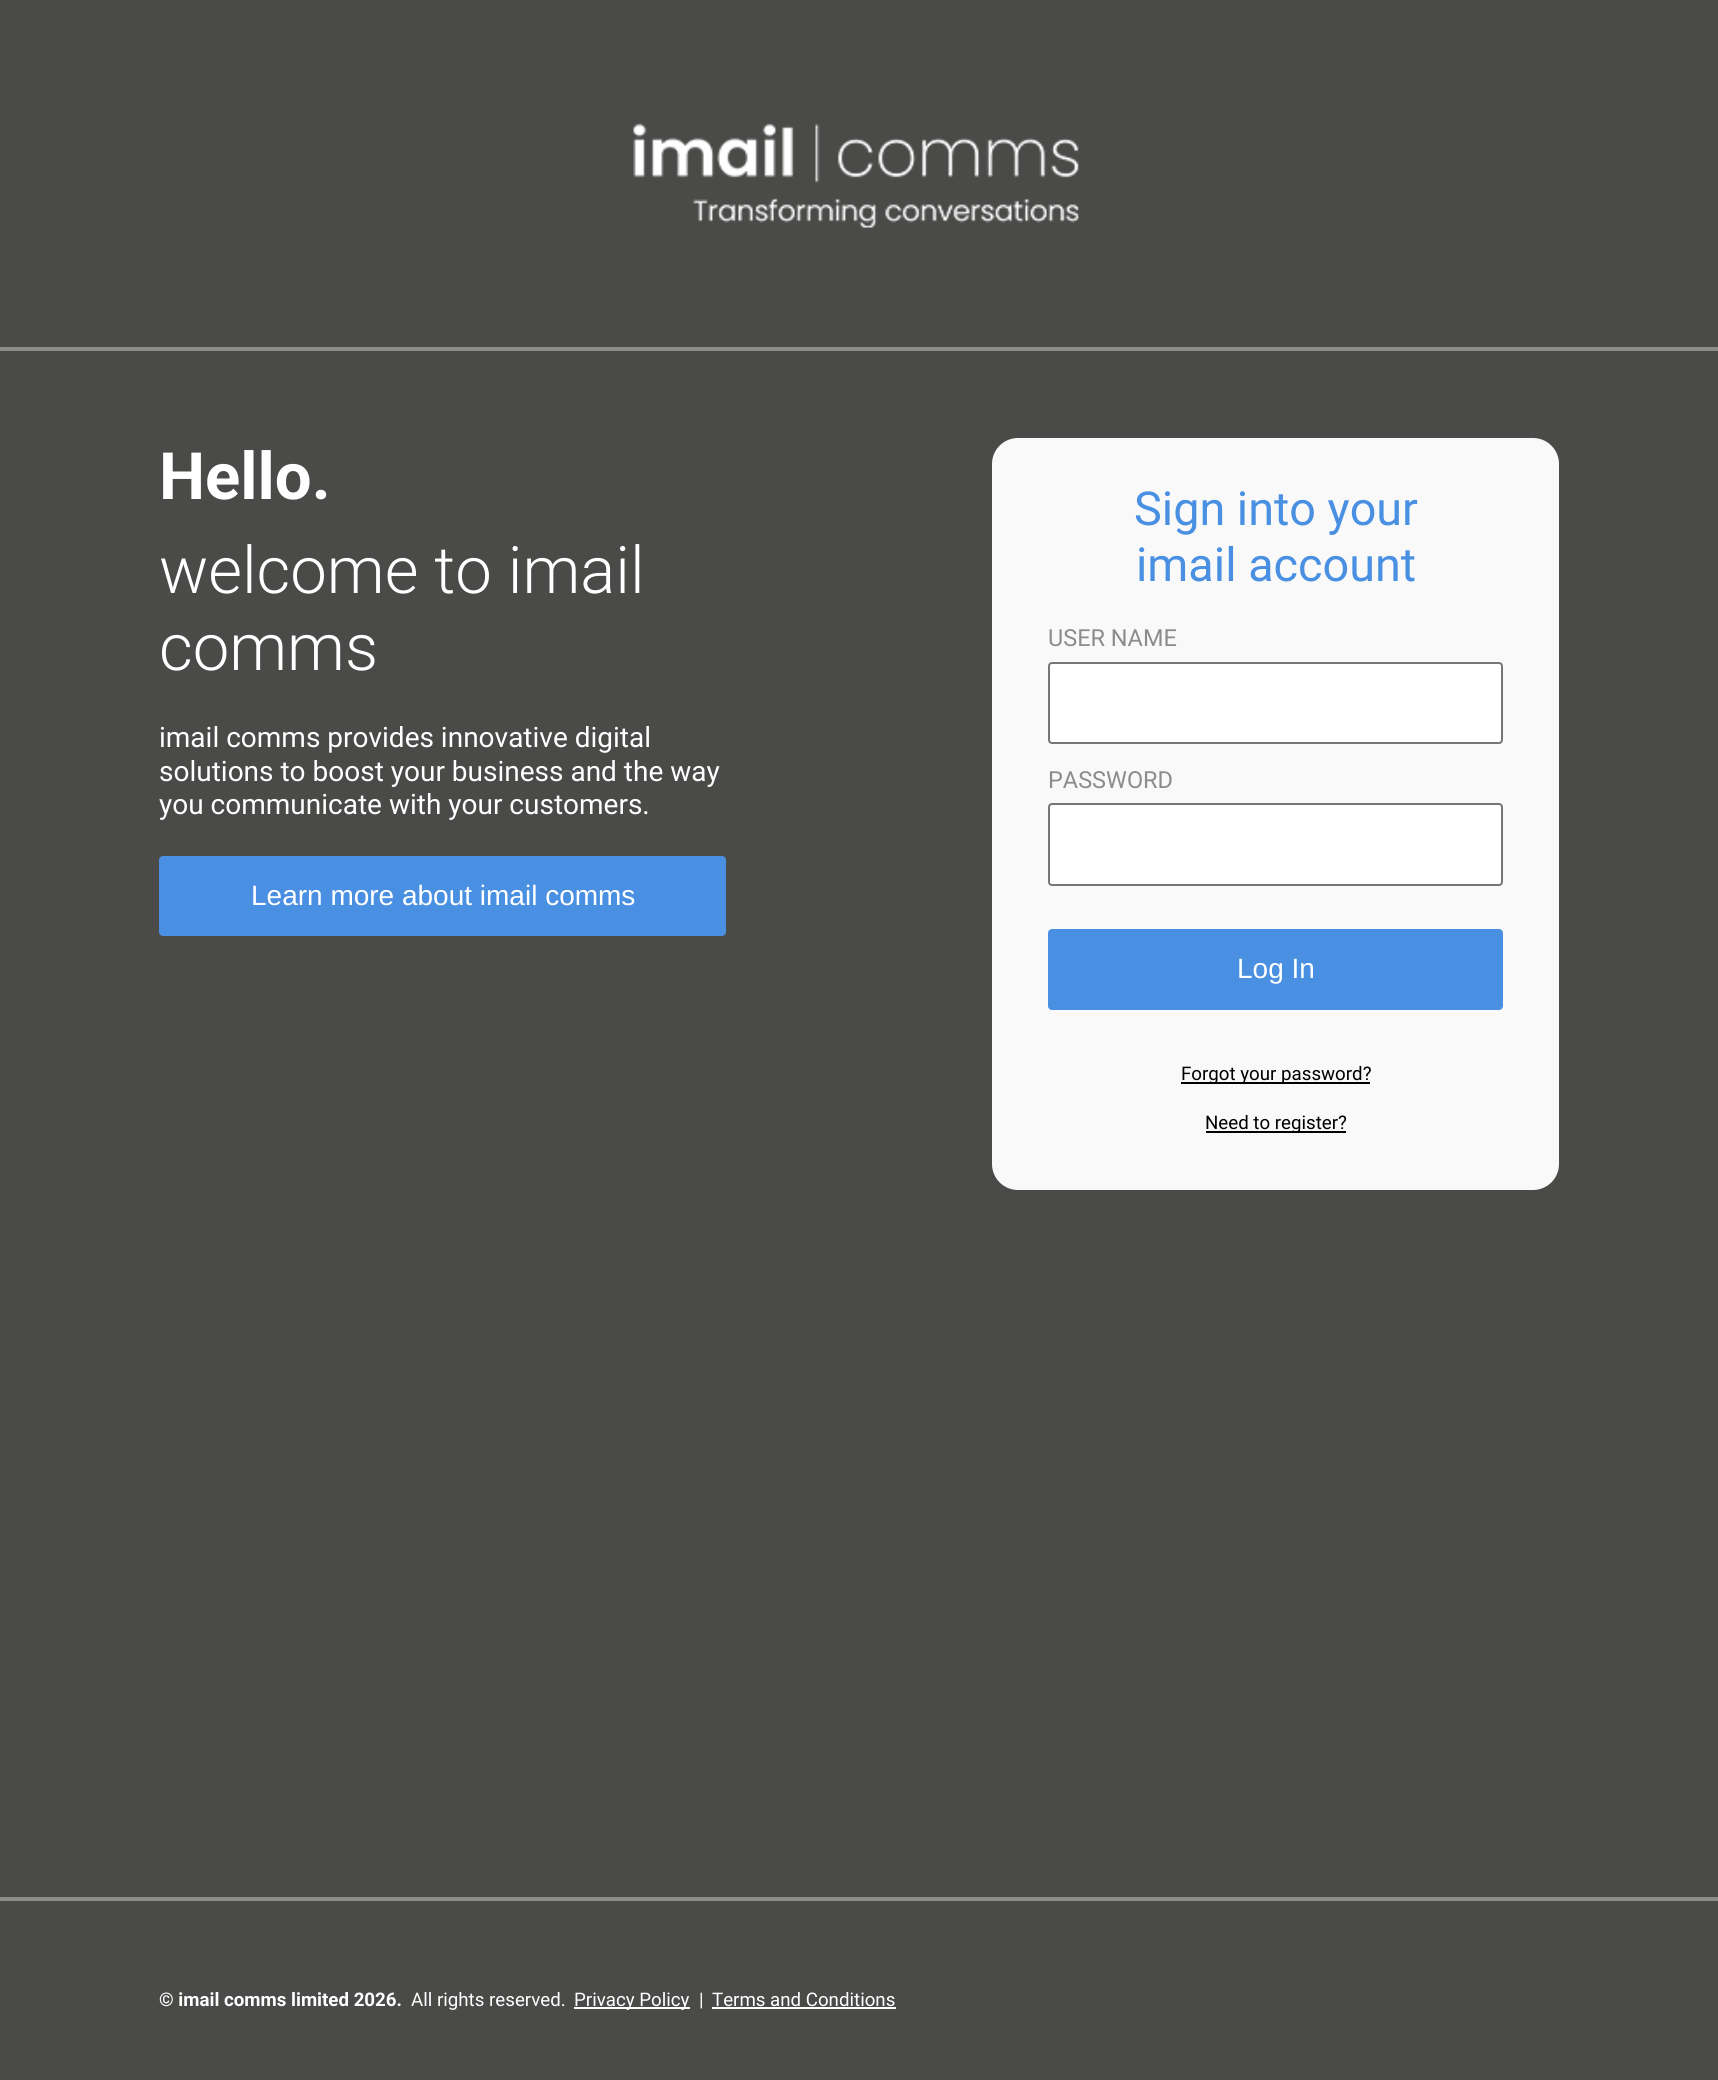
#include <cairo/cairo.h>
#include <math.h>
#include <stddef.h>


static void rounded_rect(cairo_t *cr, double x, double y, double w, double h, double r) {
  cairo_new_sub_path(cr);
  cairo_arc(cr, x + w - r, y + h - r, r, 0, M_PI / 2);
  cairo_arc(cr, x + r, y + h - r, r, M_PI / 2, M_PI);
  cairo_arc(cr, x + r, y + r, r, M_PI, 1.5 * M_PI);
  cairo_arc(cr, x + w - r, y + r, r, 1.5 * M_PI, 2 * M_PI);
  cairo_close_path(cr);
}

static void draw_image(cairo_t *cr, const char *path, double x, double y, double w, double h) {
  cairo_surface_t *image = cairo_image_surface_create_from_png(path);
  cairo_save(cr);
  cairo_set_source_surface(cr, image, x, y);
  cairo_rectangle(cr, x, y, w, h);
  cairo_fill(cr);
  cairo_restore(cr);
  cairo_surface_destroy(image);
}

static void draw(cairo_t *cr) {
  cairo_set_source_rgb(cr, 74 / 255.0, 74 / 255.0, 73 / 255.0);
  cairo_paint(cr);
  cairo_set_source_rgb(cr, 140 / 255.0, 140 / 255.0, 139 / 255.0);
  cairo_rectangle(cr, 0, 347, 1718, 4);
  cairo_fill(cr);
  draw_image(cr, "images/1.png", 633, 123, 446, 105);
  cairo_set_source_rgb(cr, 74 / 255.0, 144 / 255.0, 226 / 255.0);
  rounded_rect(cr, 159, 856, 567, 80, 4);
  cairo_fill(cr);
  cairo_set_source_rgb(cr, 249 / 255.0, 249 / 255.0, 249 / 255.0);
  rounded_rect(cr, 992, 438, 567, 752, 26);
  cairo_fill(cr);
  cairo_set_source_rgb(cr, 1, 1, 1);
  rounded_rect(cr, 1049, 663, 453, 80, 3);
  cairo_fill_preserve(cr);
  cairo_set_source_rgb(cr, 118 / 255.0, 118 / 255.0, 118 / 255.0);
  cairo_stroke(cr);
  cairo_set_source_rgb(cr, 1, 1, 1);
  rounded_rect(cr, 1049, 804, 453, 81, 3);
  cairo_fill_preserve(cr);
  cairo_set_source_rgb(cr, 118 / 255.0, 118 / 255.0, 118 / 255.0);
  cairo_stroke(cr);
  cairo_set_source_rgb(cr, 74 / 255.0, 144 / 255.0, 226 / 255.0);
  rounded_rect(cr, 1048, 929, 455, 81, 4);
  cairo_fill(cr);
  cairo_set_source_rgb(cr, 0, 0, 0);
  cairo_rectangle(cr, 1181, 1082, 189, 2);
  cairo_fill(cr);
  cairo_rectangle(cr, 1206, 1131, 140, 2);
  cairo_fill(cr);
  cairo_set_source_rgb(cr, 140 / 255.0, 140 / 255.0, 139 / 255.0);
  cairo_rectangle(cr, 0, 1897, 1718, 4);
  cairo_fill(cr);
  cairo_set_source_rgb(cr, 1, 1, 1);
  cairo_rectangle(cr, 574, 2007, 116, 2);
  cairo_fill(cr);
  cairo_rectangle(cr, 712, 2007, 184, 2);
  cairo_fill(cr);
  cairo_select_font_face(cr, "Roboto", CAIRO_FONT_SLANT_NORMAL, CAIRO_FONT_WEIGHT_BOLD);
  cairo_set_font_size(cr, 65.25);
  cairo_move_to(cr, 159, 499);
  cairo_show_text(cr, "Hello.");
  cairo_select_font_face(cr, "Roboto Light", CAIRO_FONT_SLANT_NORMAL, CAIRO_FONT_WEIGHT_NORMAL);
  cairo_move_to(cr, 159, 593);
  cairo_show_text(cr, "welcome to imail");
  cairo_move_to(cr, 159, 670);
  cairo_show_text(cr, "comms");
  cairo_select_font_face(cr, "Roboto", CAIRO_FONT_SLANT_NORMAL, CAIRO_FONT_WEIGHT_NORMAL);
  cairo_set_font_size(cr, 28);
  cairo_move_to(cr, 159, 747);
  cairo_show_text(cr, "imail comms provides innovative digital");
  cairo_move_to(cr, 159, 781);
  cairo_show_text(cr, "solutions to boost your business and the way");
  cairo_move_to(cr, 159, 814);
  cairo_show_text(cr, "you communicate with your customers.");
  cairo_select_font_face(cr, "Liberation Sans", CAIRO_FONT_SLANT_NORMAL, CAIRO_FONT_WEIGHT_NORMAL);
  cairo_move_to(cr, 251, 905);
  cairo_show_text(cr, "Learn more about imail comms");
  cairo_select_font_face(cr, "Roboto", CAIRO_FONT_SLANT_NORMAL, CAIRO_FONT_WEIGHT_NORMAL);
  cairo_set_font_size(cr, 46.75);
  cairo_set_source_rgb(cr, 74 / 255.0, 144 / 255.0, 226 / 255.0);
  cairo_move_to(cr, 1134, 525);
  cairo_show_text(cr, "Sign into your");
  cairo_move_to(cr, 1136, 581);
  cairo_show_text(cr, "imail account");
  cairo_set_font_size(cr, 23.5);
  cairo_set_source_rgb(cr, 140 / 255.0, 140 / 255.0, 139 / 255.0);
  cairo_move_to(cr, 1048, 646);
  cairo_show_text(cr, "USER NAME");
  cairo_move_to(cr, 1048, 788);
  cairo_show_text(cr, "PASSWORD");
  cairo_select_font_face(cr, "Liberation Sans", CAIRO_FONT_SLANT_NORMAL, CAIRO_FONT_WEIGHT_NORMAL);
  cairo_set_font_size(cr, 28);
  cairo_set_source_rgb(cr, 1, 1, 1);
  cairo_move_to(cr, 1237, 978);
  cairo_show_text(cr, "Log In");
  cairo_select_font_face(cr, "Roboto", CAIRO_FONT_SLANT_NORMAL, CAIRO_FONT_WEIGHT_NORMAL);
  cairo_set_font_size(cr, 18.7);
  cairo_set_source_rgb(cr, 0, 0, 0);
  cairo_move_to(cr, 1181, 1080);
  cairo_show_text(cr, "Forgot your password?");
  cairo_move_to(cr, 1205, 1129);
  cairo_show_text(cr, "Need to register?");
  cairo_select_font_face(cr, "Roboto", CAIRO_FONT_SLANT_NORMAL, CAIRO_FONT_WEIGHT_BOLD);
  cairo_set_source_rgb(cr, 1, 1, 1);
  cairo_move_to(cr, 159, 2006);
  cairo_show_text(cr, "© imail comms limited 2026.");
  cairo_select_font_face(cr, "Roboto", CAIRO_FONT_SLANT_NORMAL, CAIRO_FONT_WEIGHT_NORMAL);
  cairo_move_to(cr, 411, 2006);
  cairo_show_text(cr, "All rights reserved.");
  cairo_move_to(cr, 574, 2006);
  cairo_show_text(cr, "Privacy Policy");
  cairo_move_to(cr, 699, 2006);
  cairo_show_text(cr, "|");
  cairo_move_to(cr, 712, 2006);
  cairo_show_text(cr, "Terms and Conditions");
}

int main(void) {
  cairo_surface_t *surface = cairo_image_surface_create(CAIRO_FORMAT_RGB24, 1718, 2080);
  cairo_t *cr = cairo_create(surface);
  cairo_font_options_t *options = cairo_font_options_create();
  cairo_font_options_set_hint_metrics(options, CAIRO_HINT_METRICS_OFF);
  cairo_font_options_set_hint_style(options, CAIRO_HINT_STYLE_NONE);
  cairo_set_font_options(cr, options);
  cairo_set_miter_limit(cr, 4);
  draw(cr);
  cairo_surface_write_to_png(surface, "out.png");
  cairo_font_options_destroy(options);
  cairo_destroy(cr);
  cairo_surface_destroy(surface);
  return 0;
}
